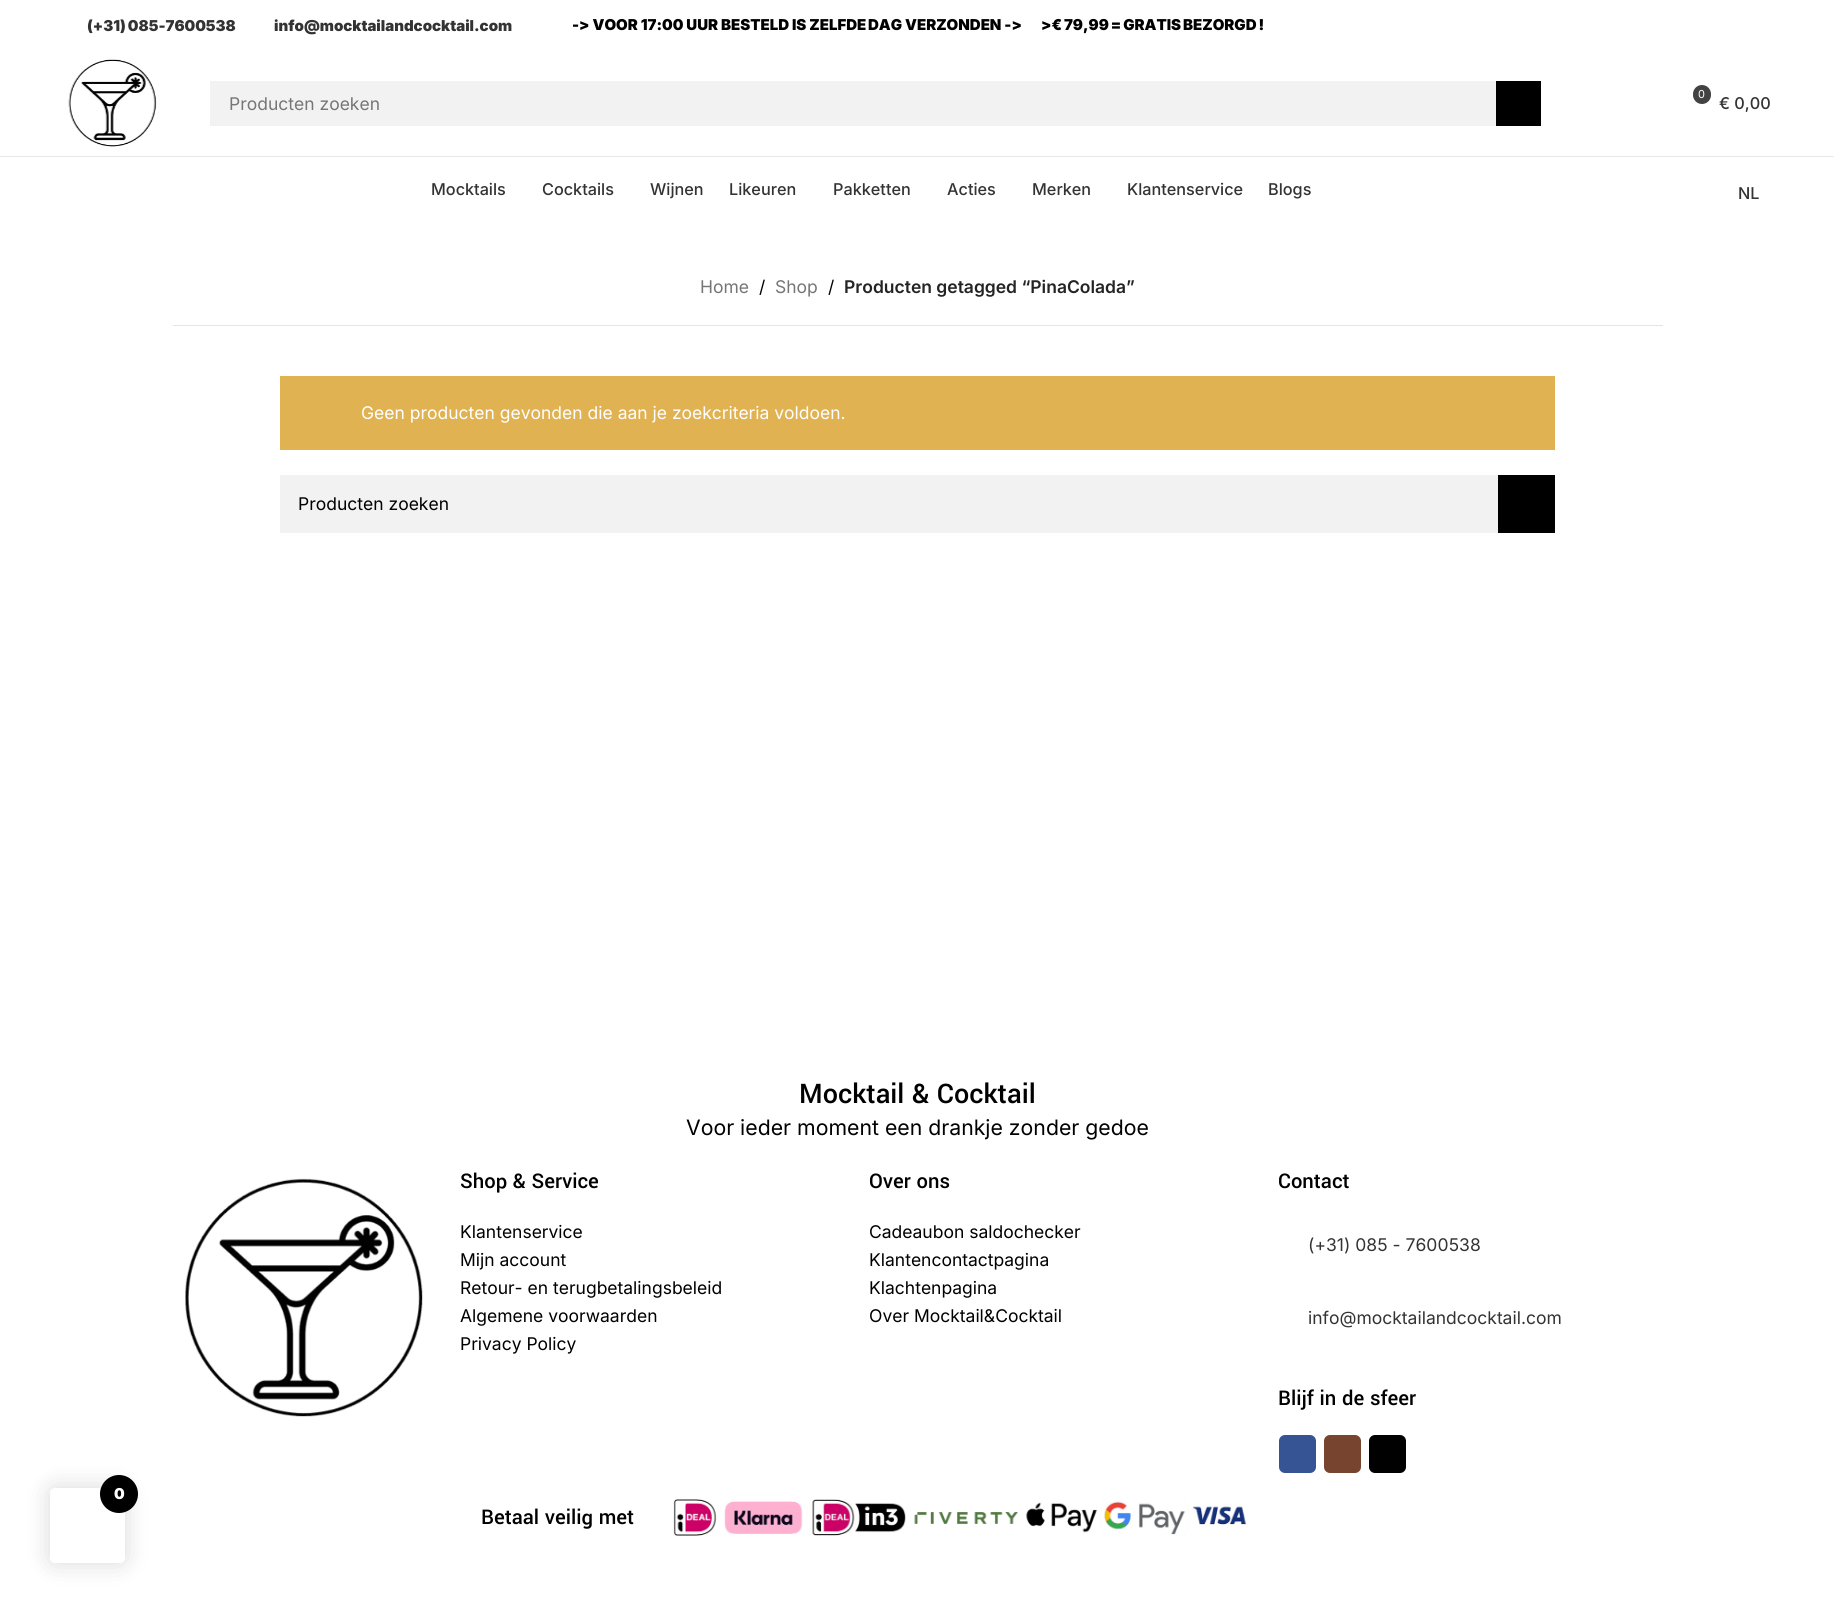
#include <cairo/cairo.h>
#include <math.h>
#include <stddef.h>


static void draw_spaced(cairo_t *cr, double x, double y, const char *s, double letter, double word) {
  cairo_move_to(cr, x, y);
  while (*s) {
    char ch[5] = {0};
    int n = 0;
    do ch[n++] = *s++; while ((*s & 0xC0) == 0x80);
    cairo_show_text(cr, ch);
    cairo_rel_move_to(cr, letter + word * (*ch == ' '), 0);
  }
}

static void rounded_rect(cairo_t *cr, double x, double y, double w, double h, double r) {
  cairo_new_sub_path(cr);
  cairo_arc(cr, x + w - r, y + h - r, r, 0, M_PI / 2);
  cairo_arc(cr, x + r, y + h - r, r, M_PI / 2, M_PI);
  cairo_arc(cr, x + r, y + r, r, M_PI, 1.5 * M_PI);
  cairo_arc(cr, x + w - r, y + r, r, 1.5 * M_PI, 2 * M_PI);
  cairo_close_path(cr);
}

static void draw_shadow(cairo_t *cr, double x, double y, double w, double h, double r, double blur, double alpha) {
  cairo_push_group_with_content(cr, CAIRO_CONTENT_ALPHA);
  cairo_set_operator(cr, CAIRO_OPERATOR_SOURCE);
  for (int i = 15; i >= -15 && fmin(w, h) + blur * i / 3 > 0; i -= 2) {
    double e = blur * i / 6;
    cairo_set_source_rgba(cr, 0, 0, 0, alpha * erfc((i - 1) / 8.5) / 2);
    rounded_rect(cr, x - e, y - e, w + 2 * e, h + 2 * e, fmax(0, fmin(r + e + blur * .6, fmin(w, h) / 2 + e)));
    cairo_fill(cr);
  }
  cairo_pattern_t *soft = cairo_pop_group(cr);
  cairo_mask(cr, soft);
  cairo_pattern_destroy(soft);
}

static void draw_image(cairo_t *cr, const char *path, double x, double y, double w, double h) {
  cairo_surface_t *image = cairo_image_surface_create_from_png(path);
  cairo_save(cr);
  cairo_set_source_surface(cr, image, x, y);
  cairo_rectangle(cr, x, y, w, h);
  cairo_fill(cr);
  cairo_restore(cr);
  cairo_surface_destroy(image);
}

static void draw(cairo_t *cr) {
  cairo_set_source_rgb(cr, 1, 1, 1);
  cairo_paint(cr);
  cairo_set_source_rgb(cr, 232 / 255.0, 232 / 255.0, 232 / 255.0);
  cairo_rectangle(cr, 0, 156, 1834, 1);
  cairo_fill(cr);
  draw_image(cr, "images/1.png", 68, 59, 89, 88);
  cairo_set_source_rgb(cr, 242 / 255.0, 242 / 255.0, 242 / 255.0);
  cairo_rectangle(cr, 210, 81, 1286, 45);
  cairo_fill(cr);
  cairo_set_source_rgb(cr, 0, 0, 0);
  cairo_rectangle(cr, 1496, 81, 45, 45);
  cairo_fill(cr);
  cairo_set_source_rgb(cr, 66 / 255.0, 66 / 255.0, 66 / 255.0);
  rounded_rect(cr, 1693, 85, 18, 19, 9);
  cairo_fill(cr);
  cairo_set_source_rgb(cr, 228 / 255.0, 228 / 255.0, 228 / 255.0);
  cairo_rectangle(cr, 173, 325, 1490, 1);
  cairo_fill(cr);
  cairo_set_source_rgb(cr, 224 / 255.0, 178 / 255.0, 82 / 255.0);
  cairo_rectangle(cr, 280, 376, 1275, 74);
  cairo_fill(cr);
  cairo_set_source_rgb(cr, 242 / 255.0, 242 / 255.0, 242 / 255.0);
  cairo_rectangle(cr, 280, 475, 1218, 58);
  cairo_fill(cr);
  cairo_set_source_rgb(cr, 0, 0, 0);
  cairo_rectangle(cr, 1498, 475, 57, 58);
  cairo_fill(cr);
  draw_image(cr, "images/2.png", 185, 1178, 238, 239);
  cairo_set_source_rgb(cr, 54 / 255.0, 84 / 255.0, 147 / 255.0);
  rounded_rect(cr, 1279, 1435, 37, 38, 6);
  cairo_fill(cr);
  cairo_set_source_rgb(cr, 119 / 255.0, 68 / 255.0, 48 / 255.0);
  rounded_rect(cr, 1324, 1435, 37, 38, 6);
  cairo_fill(cr);
  cairo_set_source_rgb(cr, 1 / 255.0, 1 / 255.0, 1 / 255.0);
  rounded_rect(cr, 1369, 1435, 37, 38, 6);
  cairo_fill(cr);
  draw_image(cr, "images/3.png", 673, 1499, 574, 37);
  cairo_set_source_rgb(cr, 0, 0, 0);
  draw_shadow(cr, 50, 1488, 75, 75, 5, 12.5, 0.15);
  cairo_set_source_rgb(cr, 1, 1, 1);
  rounded_rect(cr, 50, 1488, 75, 75, 5);
  cairo_fill(cr);
  cairo_set_source_rgb(cr, 0, 0, 0);
  cairo_arc(cr, 119, 1494, 19, 0, 2 * M_PI);
  cairo_fill(cr);
  cairo_select_font_face(cr, "Inter Black", CAIRO_FONT_SLANT_NORMAL, CAIRO_FONT_WEIGHT_NORMAL);
  cairo_set_font_size(cr, 15);
  cairo_set_source_rgb(cr, 51 / 255.0, 51 / 255.0, 51 / 255.0);
  draw_spaced(cr, 87, 31, "(+31) 085-7600538", 0, -1);
  cairo_move_to(cr, 274, 31);
  cairo_show_text(cr, "info@mocktailandcocktail.com");
  cairo_set_source_rgb(cr, 0, 0, 0);
  cairo_move_to(cr, 572, 30);
  cairo_show_text(cr, "-> VOOR 17:00 UUR BESTELD IS ZELFDE");
  cairo_move_to(cr, 868, 30);
  cairo_show_text(cr, "DAG VERZONDEN ->");
  draw_spaced(cr, 1041, 30, ">€ 79,99 = GRATIS BEZORGD !", 0, -1);
  cairo_select_font_face(cr, "Inter", CAIRO_FONT_SLANT_NORMAL, CAIRO_FONT_WEIGHT_NORMAL);
  cairo_set_font_size(cr, 17.5);
  cairo_set_source_rgb(cr, 118 / 255.0, 118 / 255.0, 118 / 255.0);
  cairo_move_to(cr, 229, 110);
  cairo_show_text(cr, "Producten zoeken");
  cairo_set_font_size(cr, 11);
  cairo_set_source_rgb(cr, 1, 1, 1);
  cairo_move_to(cr, 1698, 98);
  cairo_show_text(cr, "0");
  cairo_select_font_face(cr, "Inter Medium", CAIRO_FONT_SLANT_NORMAL, CAIRO_FONT_WEIGHT_NORMAL);
  cairo_set_font_size(cr, 16.25);
  cairo_set_source_rgb(cr, 51 / 255.0, 51 / 255.0, 51 / 255.0);
  cairo_move_to(cr, 1719, 109);
  cairo_show_text(cr, "€ 0,00");
  cairo_move_to(cr, 431, 195);
  cairo_show_text(cr, "Mocktails");
  cairo_move_to(cr, 542, 195);
  cairo_show_text(cr, "Cocktails");
  cairo_move_to(cr, 650, 195);
  cairo_show_text(cr, "Wijnen");
  cairo_move_to(cr, 729, 195);
  cairo_show_text(cr, "Likeuren");
  cairo_move_to(cr, 833, 195);
  cairo_show_text(cr, "Pakketten");
  cairo_move_to(cr, 947, 195);
  cairo_show_text(cr, "Acties");
  cairo_move_to(cr, 1032, 195);
  cairo_show_text(cr, "Merken");
  cairo_move_to(cr, 1127, 195);
  cairo_show_text(cr, "Klantenservice");
  cairo_move_to(cr, 1268, 195);
  cairo_show_text(cr, "Blogs");
  cairo_move_to(cr, 1738, 199);
  cairo_show_text(cr, "NL");
  cairo_select_font_face(cr, "Inter", CAIRO_FONT_SLANT_NORMAL, CAIRO_FONT_WEIGHT_NORMAL);
  cairo_set_font_size(cr, 17.5);
  cairo_set_source_rgb(cr, 118 / 255.0, 118 / 255.0, 118 / 255.0);
  cairo_move_to(cr, 700, 293);
  cairo_show_text(cr, "Home");
  cairo_set_source_rgb(cr, 0, 0, 0);
  cairo_move_to(cr, 759, 293);
  cairo_show_text(cr, "/");
  cairo_set_source_rgb(cr, 118 / 255.0, 118 / 255.0, 118 / 255.0);
  cairo_move_to(cr, 775, 293);
  cairo_show_text(cr, "Shop");
  cairo_set_source_rgb(cr, 0, 0, 0);
  cairo_move_to(cr, 828, 293);
  cairo_show_text(cr, "/");
  cairo_select_font_face(cr, "Inter SemiBold", CAIRO_FONT_SLANT_NORMAL, CAIRO_FONT_WEIGHT_NORMAL);
  cairo_set_source_rgb(cr, 36 / 255.0, 36 / 255.0, 36 / 255.0);
  cairo_move_to(cr, 844, 293);
  cairo_show_text(cr, "Producten getagged “PinaColada”");
  cairo_select_font_face(cr, "Inter", CAIRO_FONT_SLANT_NORMAL, CAIRO_FONT_WEIGHT_NORMAL);
  cairo_set_source_rgb(cr, 1, 1, 1);
  cairo_move_to(cr, 361, 419);
  cairo_show_text(cr, "Geen producten gevonden die aan je zoekcriteria voldoen.");
  cairo_set_source_rgb(cr, 0, 0, 0);
  cairo_move_to(cr, 298, 510);
  cairo_show_text(cr, "Producten zoeken");
  cairo_select_font_face(cr, "Yantramanav Medium", CAIRO_FONT_SLANT_NORMAL, CAIRO_FONT_WEIGHT_NORMAL);
  cairo_set_font_size(cr, 30);
  cairo_move_to(cr, 799, 1103);
  cairo_show_text(cr, "Mocktail & Cocktail");
  cairo_select_font_face(cr, "Inter", CAIRO_FONT_SLANT_NORMAL, CAIRO_FONT_WEIGHT_NORMAL);
  cairo_set_font_size(cr, 21.25);
  cairo_move_to(cr, 686, 1135);
  cairo_show_text(cr, "Voor ieder moment een drankje zonder gedoe");
  cairo_select_font_face(cr, "Yantramanav Medium", CAIRO_FONT_SLANT_NORMAL, CAIRO_FONT_WEIGHT_NORMAL);
  cairo_set_font_size(cr, 22.5);
  cairo_move_to(cr, 460, 1188);
  cairo_show_text(cr, "Shop & Service");
  cairo_select_font_face(cr, "Inter", CAIRO_FONT_SLANT_NORMAL, CAIRO_FONT_WEIGHT_NORMAL);
  cairo_set_font_size(cr, 17.5);
  cairo_move_to(cr, 460, 1238);
  cairo_show_text(cr, "Klantenservice");
  cairo_move_to(cr, 460, 1266);
  cairo_show_text(cr, "Mijn account");
  cairo_move_to(cr, 460, 1294);
  cairo_show_text(cr, "Retour- en terugbetalingsbeleid");
  cairo_move_to(cr, 460, 1322);
  cairo_show_text(cr, "Algemene voorwaarden");
  cairo_move_to(cr, 460, 1350);
  cairo_show_text(cr, "Privacy Policy");
  cairo_select_font_face(cr, "Yantramanav Medium", CAIRO_FONT_SLANT_NORMAL, CAIRO_FONT_WEIGHT_NORMAL);
  cairo_set_font_size(cr, 22.5);
  cairo_move_to(cr, 869, 1188);
  cairo_show_text(cr, "Over ons");
  cairo_select_font_face(cr, "Inter", CAIRO_FONT_SLANT_NORMAL, CAIRO_FONT_WEIGHT_NORMAL);
  cairo_set_font_size(cr, 17.5);
  cairo_move_to(cr, 869, 1238);
  cairo_show_text(cr, "Cadeaubon saldochecker");
  cairo_move_to(cr, 869, 1266);
  cairo_show_text(cr, "Klantencontactpagina");
  cairo_move_to(cr, 869, 1294);
  cairo_show_text(cr, "Klachtenpagina");
  cairo_move_to(cr, 869, 1322);
  cairo_show_text(cr, "Over Mocktail&Cocktail");
  cairo_select_font_face(cr, "Yantramanav Medium", CAIRO_FONT_SLANT_NORMAL, CAIRO_FONT_WEIGHT_NORMAL);
  cairo_set_font_size(cr, 22.5);
  cairo_move_to(cr, 1278, 1188);
  cairo_show_text(cr, "Contact");
  cairo_select_font_face(cr, "Inter", CAIRO_FONT_SLANT_NORMAL, CAIRO_FONT_WEIGHT_NORMAL);
  cairo_set_font_size(cr, 17.5);
  cairo_set_source_rgb(cr, 51 / 255.0, 51 / 255.0, 51 / 255.0);
  cairo_move_to(cr, 1308, 1251);
  cairo_show_text(cr, "(+31) 085 - 7600538");
  cairo_move_to(cr, 1308, 1324);
  cairo_show_text(cr, "info@mocktailandcocktail.com");
  cairo_select_font_face(cr, "Yantramanav Medium", CAIRO_FONT_SLANT_NORMAL, CAIRO_FONT_WEIGHT_NORMAL);
  cairo_set_font_size(cr, 22.5);
  cairo_set_source_rgb(cr, 0, 0, 0);
  cairo_move_to(cr, 1278, 1405);
  cairo_show_text(cr, "Blijf in de sfeer");
  cairo_move_to(cr, 481, 1524);
  cairo_show_text(cr, "Betaal veilig met");
  cairo_select_font_face(cr, "Inter Black", CAIRO_FONT_SLANT_NORMAL, CAIRO_FONT_WEIGHT_NORMAL);
  cairo_set_font_size(cr, 15);
  cairo_set_source_rgb(cr, 1, 1, 1);
  cairo_move_to(cr, 114, 1499);
  cairo_show_text(cr, "0");
}

int main(void) {
  cairo_surface_t *surface = cairo_image_surface_create(CAIRO_FORMAT_RGB24, 1834, 1612);
  cairo_t *cr = cairo_create(surface);
  cairo_font_options_t *options = cairo_font_options_create();
  cairo_font_options_set_hint_metrics(options, CAIRO_HINT_METRICS_OFF);
  cairo_font_options_set_hint_style(options, CAIRO_HINT_STYLE_NONE);
  cairo_set_font_options(cr, options);
  cairo_set_miter_limit(cr, 4);
  draw(cr);
  cairo_surface_write_to_png(surface, "out.png");
  cairo_font_options_destroy(options);
  cairo_destroy(cr);
  cairo_surface_destroy(surface);
  return 0;
}
